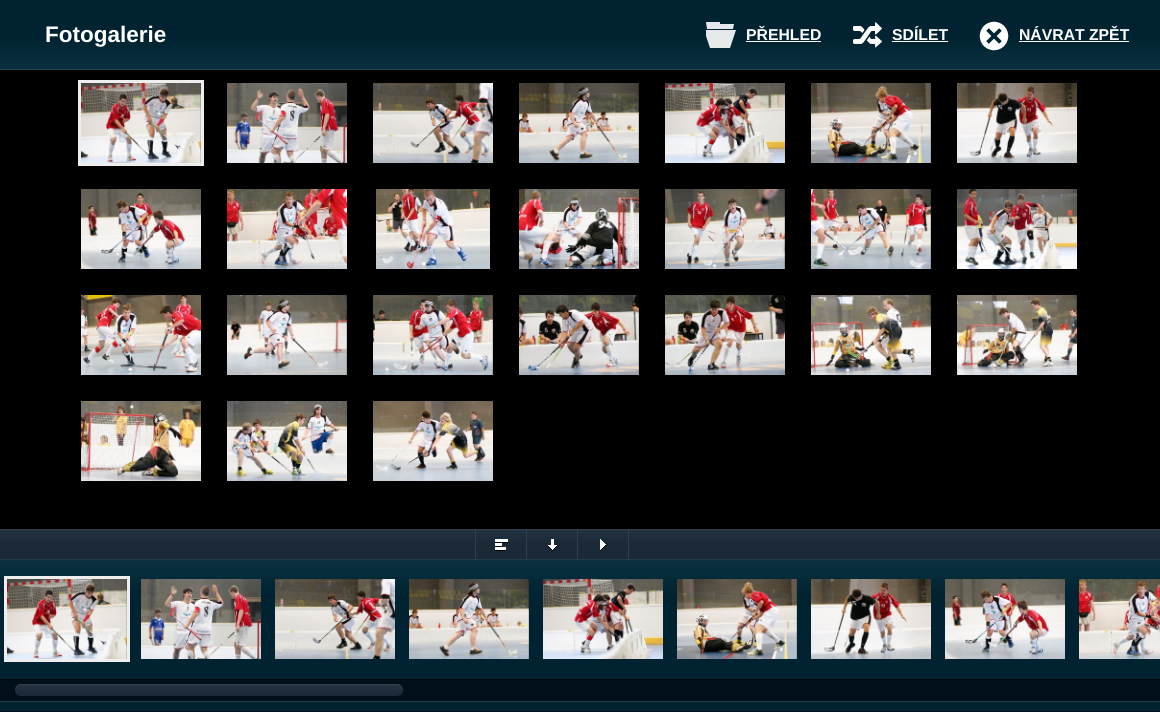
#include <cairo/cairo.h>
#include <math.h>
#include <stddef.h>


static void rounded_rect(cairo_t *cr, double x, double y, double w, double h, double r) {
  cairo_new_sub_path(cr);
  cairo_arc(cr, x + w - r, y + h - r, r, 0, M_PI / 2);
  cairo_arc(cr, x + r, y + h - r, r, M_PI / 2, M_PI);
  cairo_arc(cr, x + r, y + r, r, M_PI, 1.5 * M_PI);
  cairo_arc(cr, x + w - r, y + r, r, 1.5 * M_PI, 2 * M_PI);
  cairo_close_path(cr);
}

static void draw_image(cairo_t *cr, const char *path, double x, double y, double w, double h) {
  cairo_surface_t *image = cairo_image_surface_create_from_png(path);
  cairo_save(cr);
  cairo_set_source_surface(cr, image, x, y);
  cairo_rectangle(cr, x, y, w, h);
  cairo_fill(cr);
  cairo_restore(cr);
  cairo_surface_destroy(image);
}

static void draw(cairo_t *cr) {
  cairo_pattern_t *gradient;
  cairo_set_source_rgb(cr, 0, 0, 0);
  cairo_paint(cr);
  draw_image(cr, "images/1.png", 0, 0, 1160, 70);
  draw_image(cr, "images/2.png", 706, 22, 30, 26);
  cairo_set_source_rgb(cr, 1, 1, 1);
  cairo_rectangle(cr, 746, 41, 75, 1);
  cairo_fill(cr);
  draw_image(cr, "images/3.png", 853, 22, 29, 26);
  cairo_rectangle(cr, 892, 41, 56, 1);
  cairo_fill(cr);
  draw_image(cr, "images/4.png", 979, 21, 30, 30);
  cairo_rectangle(cr, 1019, 41, 110, 1);
  cairo_fill(cr);
  cairo_rectangle(cr, 79.5, 81.5, 123, 83);
  cairo_set_source_rgb(cr, 238 / 255.0, 238 / 255.0, 238 / 255.0);
  cairo_set_line_width(cr, 3);
  cairo_stroke(cr);
  draw_image(cr, "images/5.png", 81, 83, 120, 80);
  draw_image(cr, "images/6.png", 227, 83, 120, 80);
  draw_image(cr, "images/7.png", 373, 83, 120, 80);
  draw_image(cr, "images/8.png", 519, 83, 120, 80);
  draw_image(cr, "images/9.png", 665, 83, 120, 80);
  draw_image(cr, "images/10.png", 811, 83, 120, 80);
  draw_image(cr, "images/11.png", 957, 83, 120, 80);
  draw_image(cr, "images/12.png", 81, 189, 120, 80);
  draw_image(cr, "images/13.png", 227, 189, 120, 80);
  draw_image(cr, "images/14.png", 376, 189, 114, 80);
  draw_image(cr, "images/15.png", 519, 189, 120, 80);
  draw_image(cr, "images/16.png", 665, 189, 120, 80);
  draw_image(cr, "images/17.png", 811, 189, 120, 80);
  draw_image(cr, "images/18.png", 957, 189, 120, 80);
  draw_image(cr, "images/19.png", 81, 295, 120, 80);
  draw_image(cr, "images/20.png", 227, 295, 120, 80);
  draw_image(cr, "images/21.png", 373, 295, 120, 80);
  draw_image(cr, "images/22.png", 519, 295, 120, 80);
  draw_image(cr, "images/23.png", 665, 295, 120, 80);
  draw_image(cr, "images/24.png", 811, 295, 120, 80);
  draw_image(cr, "images/25.png", 957, 295, 120, 80);
  draw_image(cr, "images/26.png", 81, 401, 120, 80);
  draw_image(cr, "images/27.png", 227, 401, 120, 80);
  draw_image(cr, "images/28.png", 373, 401, 120, 80);
  gradient = cairo_pattern_create_linear(580, 559, 580, 529);
  cairo_pattern_add_color_stop_rgba(gradient, 0, 27 / 255.0, 41 / 255.0, 55 / 255.0, 1);
  cairo_pattern_add_color_stop_rgba(gradient, 0.5, 27 / 255.0, 41 / 255.0, 55 / 255.0, 1);
  cairo_pattern_add_color_stop_rgba(gradient, 1, 35 / 255.0, 51 / 255.0, 65 / 255.0, 1);
  cairo_set_source(cr, gradient);
  cairo_pattern_destroy(gradient);
  cairo_rectangle(cr, 0, 530, 1160, 29);
  cairo_fill(cr);
  cairo_set_source_rgb(cr, 49 / 255.0, 65 / 255.0, 79 / 255.0);
  cairo_rectangle(cr, 0, 529, 1160, 1);
  cairo_fill(cr);
  cairo_rectangle(cr, 475.5, 529.5, 51, 31);
  cairo_set_source_rgb(cr, 49 / 255.0, 64 / 255.0, 80 / 255.0);
  cairo_set_line_width(cr, 1);
  cairo_stroke(cr);
  draw_image(cr, "images/29.png", 495, 539, 13, 12);
  cairo_rectangle(cr, 526.5, 529.5, 51, 31);
  cairo_stroke(cr);
  draw_image(cr, "images/30.png", 548, 539, 9, 12);
  cairo_rectangle(cr, 577.5, 529.5, 51, 31);
  cairo_stroke(cr);
  draw_image(cr, "images/31.png", 600, 539, 6, 12);
  draw_image(cr, "images/32.png", 0, 559, 1160, 153);
  cairo_rectangle(cr, 5.5, 577.5, 123, 83);
  cairo_set_source_rgb(cr, 238 / 255.0, 238 / 255.0, 238 / 255.0);
  cairo_set_line_width(cr, 3);
  cairo_stroke(cr);
  draw_image(cr, "images/5.png", 7, 579, 120, 80);
  draw_image(cr, "images/33.png", 141, 579, 120, 80);
  draw_image(cr, "images/34.png", 275, 579, 120, 80);
  draw_image(cr, "images/8.png", 409, 579, 120, 80);
  draw_image(cr, "images/35.png", 543, 579, 120, 80);
  draw_image(cr, "images/36.png", 677, 579, 120, 80);
  draw_image(cr, "images/37.png", 811, 579, 120, 80);
  draw_image(cr, "images/38.png", 945, 579, 120, 80);
  draw_image(cr, "images/39.png", 1079, 579, 81, 80);
  cairo_set_source_rgb(cr, 27 / 255.0, 41 / 255.0, 55 / 255.0);
  rounded_rect(cr, 15, 684, 388, 12, 6);
  cairo_fill(cr);
  draw_image(cr, "images/40.png", 15, 684, 388, 11);
  cairo_set_source_rgb(cr, 49 / 255.0, 65 / 255.0, 79 / 255.0);
  cairo_new_path(cr);
  cairo_move_to(cr, 21, 685);
  cairo_line_to(cr, 397, 685);
  cairo_curve_to(cr, 400, 685, 403, 688, 403, 691);
  cairo_curve_to(cr, 403, 687, 400, 684, 397, 684);
  cairo_line_to(cr, 21, 684);
  cairo_curve_to(cr, 18, 684, 15, 687, 15, 691);
  cairo_curve_to(cr, 15, 688, 18, 685, 21, 685);
  cairo_close_path(cr);
  cairo_fill(cr);
  cairo_select_font_face(cr, "Liberation Sans", CAIRO_FONT_SLANT_NORMAL, CAIRO_FONT_WEIGHT_BOLD);
  cairo_set_font_size(cr, 22.5);
  cairo_set_source_rgb(cr, 1, 1, 1);
  cairo_move_to(cr, 45, 42);
  cairo_show_text(cr, "Fotogalerie");
  cairo_set_font_size(cr, 15.75);
  cairo_move_to(cr, 746, 40);
  cairo_show_text(cr, "PŘEHLED");
  cairo_move_to(cr, 892, 40);
  cairo_show_text(cr, "SDÍLET");
  cairo_move_to(cr, 1019, 40);
  cairo_show_text(cr, "NÁVRAT ZPĚT");
}

int main(void) {
  cairo_surface_t *surface = cairo_image_surface_create(CAIRO_FORMAT_RGB24, 1160, 712);
  cairo_t *cr = cairo_create(surface);
  cairo_font_options_t *options = cairo_font_options_create();
  cairo_font_options_set_hint_metrics(options, CAIRO_HINT_METRICS_OFF);
  cairo_font_options_set_hint_style(options, CAIRO_HINT_STYLE_NONE);
  cairo_set_font_options(cr, options);
  cairo_set_miter_limit(cr, 4);
  draw(cr);
  cairo_surface_write_to_png(surface, "out.png");
  cairo_font_options_destroy(options);
  cairo_destroy(cr);
  cairo_surface_destroy(surface);
  return 0;
}
